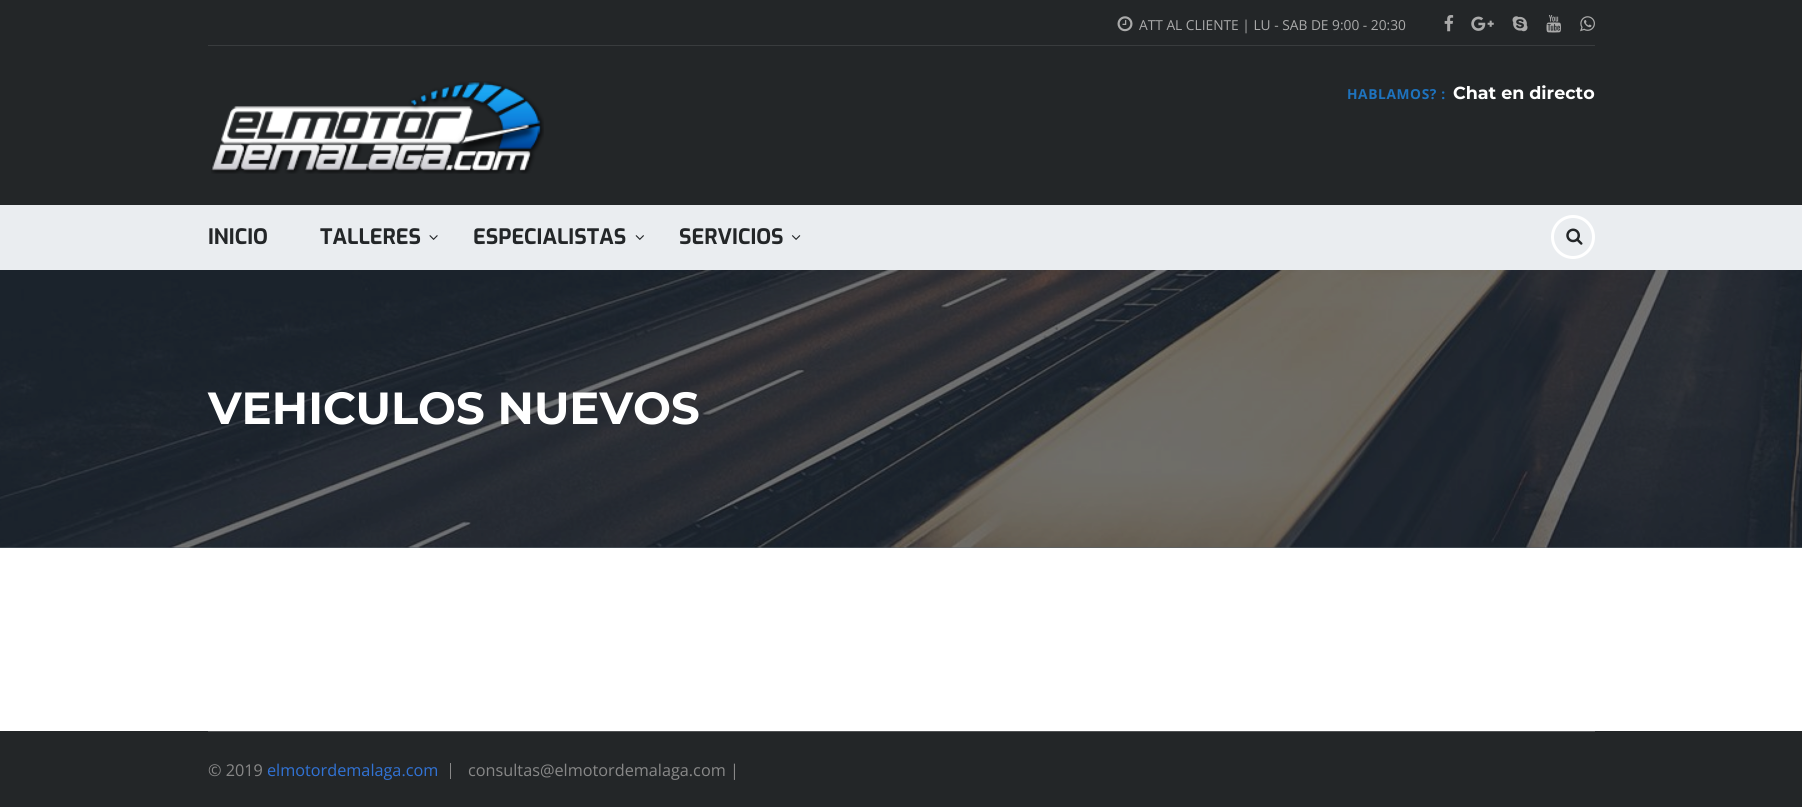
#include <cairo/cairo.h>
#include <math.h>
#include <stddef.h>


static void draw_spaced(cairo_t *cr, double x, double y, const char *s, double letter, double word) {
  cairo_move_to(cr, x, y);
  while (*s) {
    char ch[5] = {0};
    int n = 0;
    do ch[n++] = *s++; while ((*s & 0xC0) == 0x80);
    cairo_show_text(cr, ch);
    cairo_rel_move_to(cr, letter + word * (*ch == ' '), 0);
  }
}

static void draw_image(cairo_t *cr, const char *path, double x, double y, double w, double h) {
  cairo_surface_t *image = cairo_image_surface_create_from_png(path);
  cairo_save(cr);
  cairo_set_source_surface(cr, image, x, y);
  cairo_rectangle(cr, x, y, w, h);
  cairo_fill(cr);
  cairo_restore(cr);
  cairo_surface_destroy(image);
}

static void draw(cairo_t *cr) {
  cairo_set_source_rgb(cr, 1, 1, 1);
  cairo_paint(cr);
  cairo_set_source_rgb(cr, 35 / 255.0, 38 / 255.0, 40 / 255.0);
  cairo_rectangle(cr, 0, 0, 1802, 205);
  cairo_fill(cr);
  cairo_set_source_rgb(cr, 57 / 255.0, 60 / 255.0, 62 / 255.0);
  cairo_rectangle(cr, 208, 45, 1387, 1);
  cairo_fill(cr);
  draw_image(cr, "images/1.png", 1117, 16, 16, 16);
  draw_image(cr, "images/2.png", 1444, 15, 10, 17);
  draw_image(cr, "images/3.png", 1471, 16, 23, 15);
  draw_image(cr, "images/4.png", 1512, 16, 16, 16);
  draw_image(cr, "images/5.png", 1546, 15, 15, 18);
  draw_image(cr, "images/6.png", 1580, 16, 15, 16);
  draw_image(cr, "images/7.png", 211, 81, 333, 93);
  cairo_set_source_rgb(cr, 234 / 255.0, 237 / 255.0, 240 / 255.0);
  cairo_rectangle(cr, 0, 205, 1802, 65);
  cairo_fill(cr);
  draw_image(cr, "images/8.png", 429, 235, 9, 5);
  draw_image(cr, "images/9.png", 635, 235, 9, 5);
  draw_image(cr, "images/10.png", 791, 235, 10, 5);
  cairo_arc(cr, 1573, 237, 20.5, 0, 2 * M_PI);
  cairo_set_source_rgb(cr, 1, 1, 1);
  cairo_set_line_width(cr, 3);
  cairo_stroke(cr);
  draw_image(cr, "images/11.png", 1566, 228, 17, 17);
  cairo_set_source_rgb(cr, 89 / 255.0, 99 / 255.0, 107 / 255.0);
  cairo_rectangle(cr, 0, 547, 1802, 1);
  cairo_fill(cr);
  draw_image(cr, "images/12.png", 0, 270, 1802, 278);
  cairo_set_source_rgb(cr, 35 / 255.0, 38 / 255.0, 40 / 255.0);
  cairo_rectangle(cr, 0, 731, 1802, 76);
  cairo_fill(cr);
  cairo_set_source_rgb(cr, 79 / 255.0, 81 / 255.0, 83 / 255.0);
  cairo_rectangle(cr, 208, 731, 1387, 1);
  cairo_fill(cr);
  cairo_set_source_rgb(cr, 136 / 255.0, 136 / 255.0, 136 / 255.0);
  cairo_rectangle(cr, 450, 763, 1, 16);
  cairo_fill(cr);
  cairo_select_font_face(cr, "Open Sans", CAIRO_FONT_SLANT_NORMAL, CAIRO_FONT_WEIGHT_NORMAL);
  cairo_set_font_size(cr, 13.75);
  cairo_set_source_rgb(cr, 170 / 255.0, 170 / 255.0, 170 / 255.0);
  cairo_move_to(cr, 1139, 30);
  cairo_show_text(cr, "ATT AL CLIENTE | LU - SAB DE 9:00 - 20:30");
  cairo_select_font_face(cr, "Open Sans", CAIRO_FONT_SLANT_NORMAL, CAIRO_FONT_WEIGHT_BOLD);
  cairo_set_source_rgb(cr, 30 / 255.0, 115 / 255.0, 190 / 255.0);
  draw_spaced(cr, 1347, 99, "HABLAMOS? :", 0.6, 0);
  cairo_select_font_face(cr, "Montserrat", CAIRO_FONT_SLANT_NORMAL, CAIRO_FONT_WEIGHT_BOLD);
  cairo_set_font_size(cr, 17.5);
  cairo_set_source_rgb(cr, 1, 1, 1);
  cairo_move_to(cr, 1453, 99);
  cairo_show_text(cr, "Chat en directo");
  cairo_select_font_face(cr, "Exo", CAIRO_FONT_SLANT_NORMAL, CAIRO_FONT_WEIGHT_BOLD);
  cairo_set_font_size(cr, 21.25);
  cairo_set_source_rgb(cr, 35 / 255.0, 38 / 255.0, 40 / 255.0);
  cairo_move_to(cr, 208, 244);
  cairo_show_text(cr, "INICIO");
  cairo_move_to(cr, 320, 244);
  cairo_show_text(cr, "TALLERES");
  cairo_move_to(cr, 473, 244);
  cairo_show_text(cr, "ESPECIALISTAS");
  cairo_move_to(cr, 679, 244);
  cairo_show_text(cr, "SERVICIOS");
  cairo_select_font_face(cr, "Montserrat", CAIRO_FONT_SLANT_NORMAL, CAIRO_FONT_WEIGHT_BOLD);
  cairo_set_font_size(cr, 45);
  cairo_set_source_rgb(cr, 1, 1, 1);
  cairo_move_to(cr, 208, 424);
  cairo_show_text(cr, "VEHICULOS NUEVOS");
  cairo_select_font_face(cr, "Open Sans", CAIRO_FONT_SLANT_NORMAL, CAIRO_FONT_WEIGHT_NORMAL);
  cairo_set_font_size(cr, 16.25);
  cairo_set_source_rgb(cr, 136 / 255.0, 136 / 255.0, 136 / 255.0);
  cairo_move_to(cr, 208, 776);
  cairo_show_text(cr, "© 2019");
  cairo_set_source_rgb(cr, 49 / 255.0, 115 / 255.0, 214 / 255.0);
  cairo_move_to(cr, 267, 776);
  cairo_show_text(cr, "elmotordemalaga.com");
  cairo_set_source_rgb(cr, 136 / 255.0, 136 / 255.0, 136 / 255.0);
  cairo_move_to(cr, 468, 776);
  cairo_show_text(cr, "consultas@elmotordemalaga.com |");
}

int main(void) {
  cairo_surface_t *surface = cairo_image_surface_create(CAIRO_FORMAT_RGB24, 1802, 807);
  cairo_t *cr = cairo_create(surface);
  cairo_font_options_t *options = cairo_font_options_create();
  cairo_font_options_set_hint_metrics(options, CAIRO_HINT_METRICS_OFF);
  cairo_font_options_set_hint_style(options, CAIRO_HINT_STYLE_NONE);
  cairo_set_font_options(cr, options);
  cairo_set_miter_limit(cr, 4);
  draw(cr);
  cairo_surface_write_to_png(surface, "out.png");
  cairo_font_options_destroy(options);
  cairo_destroy(cr);
  cairo_surface_destroy(surface);
  return 0;
}
